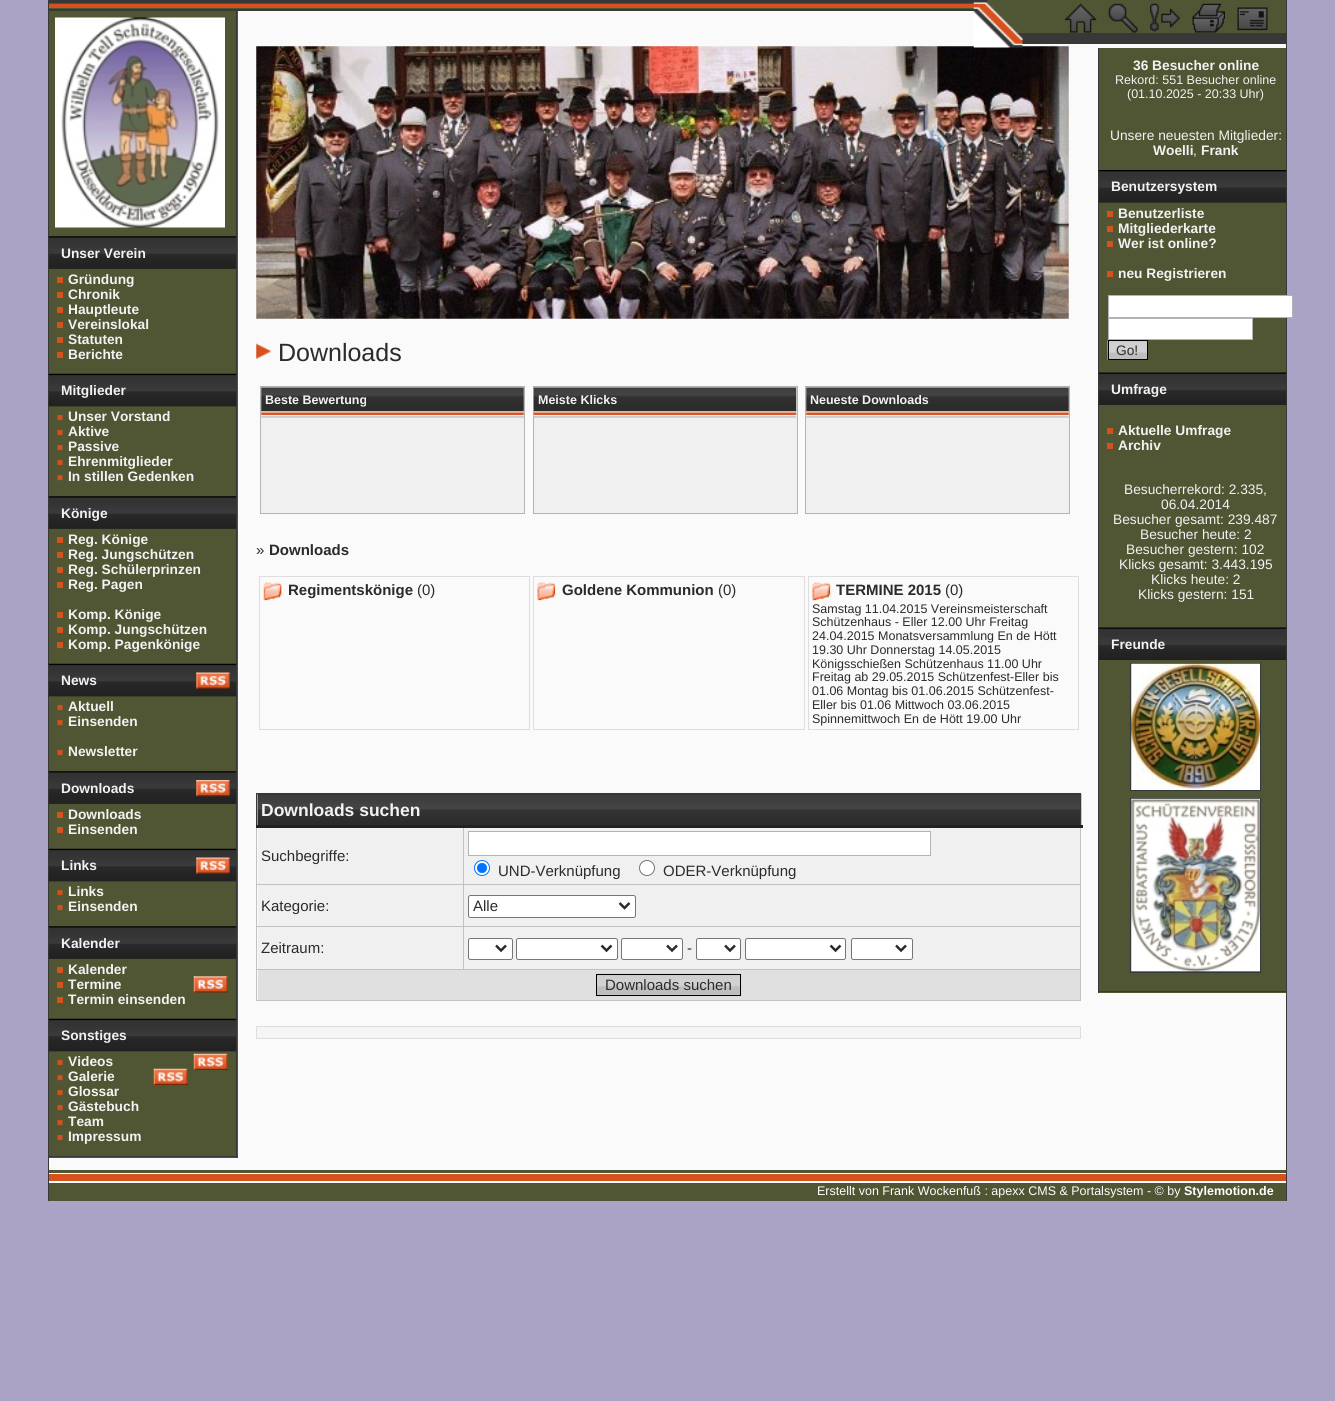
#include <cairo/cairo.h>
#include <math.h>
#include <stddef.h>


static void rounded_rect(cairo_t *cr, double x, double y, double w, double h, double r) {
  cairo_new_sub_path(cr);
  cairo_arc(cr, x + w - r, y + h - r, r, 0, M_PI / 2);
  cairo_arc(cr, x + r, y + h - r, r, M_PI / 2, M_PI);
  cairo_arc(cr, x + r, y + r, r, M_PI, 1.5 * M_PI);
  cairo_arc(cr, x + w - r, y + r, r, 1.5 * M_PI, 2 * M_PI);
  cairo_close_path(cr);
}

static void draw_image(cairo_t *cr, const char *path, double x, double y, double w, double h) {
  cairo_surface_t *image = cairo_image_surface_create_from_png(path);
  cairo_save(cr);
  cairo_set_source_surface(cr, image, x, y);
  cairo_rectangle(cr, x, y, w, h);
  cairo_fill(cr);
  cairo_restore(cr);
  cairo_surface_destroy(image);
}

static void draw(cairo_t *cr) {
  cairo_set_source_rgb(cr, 171 / 255.0, 163 / 255.0, 197 / 255.0);
  cairo_paint(cr);
  cairo_set_source_rgb(cr, 250 / 255.0, 250 / 255.0, 250 / 255.0);
  cairo_rectangle(cr, 49, 11, 1237, 1159);
  cairo_fill(cr);
  cairo_set_source_rgb(cr, 56 / 255.0, 56 / 255.0, 56 / 255.0);
  cairo_rectangle(cr, 1286, 0, 1, 1201);
  cairo_fill(cr);
  cairo_rectangle(cr, 48, 0, 1, 1201);
  cairo_fill(cr);
  cairo_rectangle(cr, 49, 0, 925, 11);
  cairo_fill(cr);
  cairo_set_source_rgb(cr, 80 / 255.0, 86 / 255.0, 52 / 255.0);
  cairo_rectangle(cr, 987, 0, 299, 33);
  cairo_fill(cr);
  cairo_set_source_rgb(cr, 56 / 255.0, 56 / 255.0, 56 / 255.0);
  cairo_rectangle(cr, 1017, 33, 269, 11);
  cairo_fill(cr);
  cairo_set_source_rgb(cr, 80 / 255.0, 86 / 255.0, 52 / 255.0);
  cairo_rectangle(cr, 49, 3, 925, 6);
  cairo_fill(cr);
  cairo_set_source_rgb(cr, 214 / 255.0, 81 / 255.0, 29 / 255.0);
  cairo_rectangle(cr, 49, 4, 925, 4);
  cairo_fill(cr);
  draw_image(cr, "images/16.png", 256, 46, 813, 273);
  draw_image(cr, "images/1.png", 973, 0, 50, 48);
  draw_image(cr, "images/2.png", 1065, 3, 32, 30);
  draw_image(cr, "images/3.png", 1108, 3, 30, 30);
  draw_image(cr, "images/4.png", 1150, 3, 30, 29);
  draw_image(cr, "images/5.png", 1192, 3, 33, 30);
  draw_image(cr, "images/6.png", 1237, 7, 31, 24);
  cairo_set_source_rgb(cr, 80 / 255.0, 86 / 255.0, 52 / 255.0);
  cairo_rectangle(cr, 49, 11, 189, 1147);
  cairo_fill(cr);
  cairo_set_source_rgb(cr, 56 / 255.0, 56 / 255.0, 56 / 255.0);
  cairo_rectangle(cr, 236, 11, 1, 1147);
  cairo_fill(cr);
  cairo_rectangle(cr, 49, 1156, 189, 1);
  cairo_fill(cr);
  draw_image(cr, "images/7.png", 55, 17, 170, 211);
  draw_image(cr, "images/8.png", 48, 236, 189, 33);
  cairo_set_source_rgb(cr, 214 / 255.0, 81 / 255.0, 29 / 255.0);
  cairo_rectangle(cr, 57, 277, 6, 6);
  cairo_fill(cr);
  cairo_rectangle(cr, 57, 292, 6, 6);
  cairo_fill(cr);
  cairo_rectangle(cr, 57, 307, 6, 6);
  cairo_fill(cr);
  cairo_rectangle(cr, 57, 322, 6, 6);
  cairo_fill(cr);
  cairo_rectangle(cr, 57, 337, 6, 6);
  cairo_fill(cr);
  cairo_rectangle(cr, 57, 352, 6, 6);
  cairo_fill(cr);
  draw_image(cr, "images/9.png", 48, 373, 189, 34);
  draw_image(cr, "images/10.png", 57, 414, 6, 7);
  draw_image(cr, "images/10.png", 57, 429, 6, 7);
  draw_image(cr, "images/10.png", 57, 444, 6, 7);
  draw_image(cr, "images/10.png", 57, 459, 6, 7);
  draw_image(cr, "images/10.png", 57, 474, 6, 7);
  draw_image(cr, "images/8.png", 48, 496, 189, 33);
  cairo_rectangle(cr, 57, 537, 6, 6);
  cairo_fill(cr);
  cairo_rectangle(cr, 57, 552, 6, 6);
  cairo_fill(cr);
  cairo_rectangle(cr, 57, 567, 6, 6);
  cairo_fill(cr);
  cairo_rectangle(cr, 57, 582, 6, 6);
  cairo_fill(cr);
  cairo_rectangle(cr, 57, 612, 6, 6);
  cairo_fill(cr);
  cairo_rectangle(cr, 57, 627, 6, 6);
  cairo_fill(cr);
  cairo_rectangle(cr, 57, 642, 6, 6);
  cairo_fill(cr);
  draw_image(cr, "images/9.png", 48, 663, 189, 34);
  draw_image(cr, "images/11.png", 196, 672, 34, 17);
  draw_image(cr, "images/10.png", 57, 704, 6, 7);
  draw_image(cr, "images/10.png", 57, 719, 6, 7);
  draw_image(cr, "images/10.png", 57, 749, 6, 7);
  draw_image(cr, "images/8.png", 48, 771, 189, 33);
  draw_image(cr, "images/12.png", 196, 780, 34, 17);
  cairo_rectangle(cr, 57, 812, 6, 6);
  cairo_fill(cr);
  cairo_rectangle(cr, 57, 827, 6, 6);
  cairo_fill(cr);
  draw_image(cr, "images/9.png", 48, 848, 189, 34);
  draw_image(cr, "images/11.png", 196, 857, 34, 17);
  draw_image(cr, "images/10.png", 57, 889, 6, 7);
  draw_image(cr, "images/10.png", 57, 904, 6, 7);
  draw_image(cr, "images/8.png", 48, 926, 189, 33);
  cairo_rectangle(cr, 57, 967, 6, 6);
  cairo_fill(cr);
  cairo_rectangle(cr, 57, 982, 6, 6);
  cairo_fill(cr);
  draw_image(cr, "images/13.png", 193, 976, 35, 17);
  cairo_rectangle(cr, 57, 997, 6, 6);
  cairo_fill(cr);
  draw_image(cr, "images/9.png", 48, 1018, 189, 34);
  draw_image(cr, "images/10.png", 57, 1059, 6, 7);
  draw_image(cr, "images/14.png", 193, 1053, 35, 17);
  draw_image(cr, "images/10.png", 57, 1074, 6, 7);
  draw_image(cr, "images/15.png", 153, 1068, 35, 17);
  draw_image(cr, "images/10.png", 57, 1089, 6, 7);
  draw_image(cr, "images/10.png", 57, 1104, 6, 7);
  draw_image(cr, "images/10.png", 57, 1119, 6, 7);
  draw_image(cr, "images/10.png", 57, 1134, 6, 7);
  draw_image(cr, "images/17.png", 256, 343, 16, 16);
  cairo_set_source_rgb(cr, 240 / 255.0, 240 / 255.0, 240 / 255.0);
  cairo_rectangle(cr, 260.5, 386.5, 264, 127);
  cairo_fill_preserve(cr);
  cairo_set_source_rgb(cr, 179 / 255.0, 179 / 255.0, 179 / 255.0);
  cairo_set_line_width(cr, 1);
  cairo_stroke(cr);
  draw_image(cr, "images/18.png", 261, 387, 263, 31);
  cairo_set_source_rgb(cr, 240 / 255.0, 240 / 255.0, 240 / 255.0);
  cairo_rectangle(cr, 533.5, 386.5, 264, 127);
  cairo_fill_preserve(cr);
  cairo_set_source_rgb(cr, 179 / 255.0, 179 / 255.0, 179 / 255.0);
  cairo_stroke(cr);
  draw_image(cr, "images/19.png", 533, 387, 264, 31);
  cairo_set_source_rgb(cr, 240 / 255.0, 240 / 255.0, 240 / 255.0);
  cairo_rectangle(cr, 805.5, 386.5, 264, 127);
  cairo_fill_preserve(cr);
  cairo_set_source_rgb(cr, 179 / 255.0, 179 / 255.0, 179 / 255.0);
  cairo_stroke(cr);
  draw_image(cr, "images/18.png", 806, 387, 263, 31);
  cairo_rectangle(cr, 259.5, 576.5, 270, 153);
  cairo_set_source_rgb(cr, 222 / 255.0, 222 / 255.0, 222 / 255.0);
  cairo_stroke(cr);
  draw_image(cr, "images/20.png", 263, 582, 19, 19);
  cairo_rectangle(cr, 533.5, 576.5, 271, 153);
  cairo_stroke(cr);
  draw_image(cr, "images/21.png", 537, 582, 19, 19);
  cairo_rectangle(cr, 808.5, 576.5, 270, 153);
  cairo_stroke(cr);
  draw_image(cr, "images/21.png", 812, 582, 19, 19);
  draw_image(cr, "images/22.png", 257, 793, 825, 32);
  cairo_set_source_rgb(cr, 56 / 255.0, 56 / 255.0, 56 / 255.0);
  cairo_rectangle(cr, 256, 793, 825, 1);
  cairo_fill(cr);
  cairo_set_source_rgb(cr, 194 / 255.0, 194 / 255.0, 194 / 255.0);
  cairo_rectangle(cr, 463, 884, 618, 1);
  cairo_fill(cr);
  cairo_set_source_rgb(cr, 240 / 255.0, 240 / 255.0, 240 / 255.0);
  cairo_rectangle(cr, 464, 885, 616, 84);
  cairo_fill(cr);
  cairo_set_source_rgb(cr, 194 / 255.0, 194 / 255.0, 194 / 255.0);
  cairo_rectangle(cr, 463, 926, 618, 1);
  cairo_fill(cr);
  cairo_rectangle(cr, 256, 969, 825, 1);
  cairo_fill(cr);
  cairo_rectangle(cr, 1080, 969, 1, 32);
  cairo_fill(cr);
  cairo_rectangle(cr, 1080, 926, 1, 44);
  cairo_fill(cr);
  cairo_rectangle(cr, 1080, 826, 1, 102);
  cairo_fill(cr);
  cairo_set_source_rgb(cr, 56 / 255.0, 56 / 255.0, 56 / 255.0);
  cairo_rectangle(cr, 1080, 793, 1, 35);
  cairo_fill(cr);
  cairo_set_source_rgb(cr, 240 / 255.0, 240 / 255.0, 240 / 255.0);
  cairo_rectangle(cr, 258, 885, 205, 84);
  cairo_fill(cr);
  cairo_set_source_rgb(cr, 194 / 255.0, 194 / 255.0, 194 / 255.0);
  cairo_rectangle(cr, 463, 926, 1, 44);
  cairo_fill(cr);
  cairo_rectangle(cr, 256, 926, 208, 1);
  cairo_fill(cr);
  cairo_rectangle(cr, 463, 884, 1, 44);
  cairo_fill(cr);
  cairo_rectangle(cr, 256, 884, 208, 1);
  cairo_fill(cr);
  cairo_rectangle(cr, 256, 1000, 825, 1);
  cairo_fill(cr);
  cairo_rectangle(cr, 256, 969, 1, 32);
  cairo_fill(cr);
  cairo_rectangle(cr, 256, 926, 1, 44);
  cairo_fill(cr);
  cairo_rectangle(cr, 256, 826, 1, 102);
  cairo_fill(cr);
  cairo_set_source_rgb(cr, 56 / 255.0, 56 / 255.0, 56 / 255.0);
  cairo_rectangle(cr, 256, 793, 1, 35);
  cairo_fill(cr);
  cairo_set_source_rgb(cr, 194 / 255.0, 194 / 255.0, 194 / 255.0);
  cairo_rectangle(cr, 463, 826, 1, 59);
  cairo_fill(cr);
  cairo_set_source_rgb(cr, 33 / 255.0, 33 / 255.0, 33 / 255.0);
  cairo_rectangle(cr, 256, 825, 827, 3);
  cairo_fill(cr);
  cairo_set_source_rgb(cr, 240 / 255.0, 240 / 255.0, 240 / 255.0);
  cairo_rectangle(cr, 258, 828, 205, 56);
  cairo_fill(cr);
  cairo_rectangle(cr, 464, 828, 616, 56);
  cairo_fill(cr);
  cairo_set_source_rgb(cr, 1, 1, 1);
  cairo_rectangle(cr, 468.5, 831.5, 462, 24);
  cairo_fill_preserve(cr);
  cairo_set_source_rgb(cr, 179 / 255.0, 179 / 255.0, 179 / 255.0);
  cairo_stroke(cr);
  cairo_set_source_rgb(cr, 1, 1, 1);
  cairo_arc(cr, 482, 868, 7.5, 0, 2 * M_PI);
  cairo_fill_preserve(cr);
  cairo_set_source_rgb(cr, 0, 117 / 255.0, 1);
  cairo_stroke(cr);
  cairo_arc(cr, 482, 868, 5, 0, 2 * M_PI);
  cairo_fill(cr);
  cairo_set_source_rgb(cr, 1, 1, 1);
  cairo_arc(cr, 647, 868, 7.5, 0, 2 * M_PI);
  cairo_fill_preserve(cr);
  cairo_set_source_rgb(cr, 118 / 255.0, 118 / 255.0, 118 / 255.0);
  cairo_stroke(cr);
  cairo_set_source_rgb(cr, 1, 1, 1);
  rounded_rect(cr, 468.5, 895.5, 167, 22, 2);
  cairo_fill_preserve(cr);
  cairo_set_source_rgb(cr, 118 / 255.0, 118 / 255.0, 118 / 255.0);
  cairo_stroke(cr);
  cairo_new_path(cr);
  cairo_move_to(cr, 619.5, 903);
  cairo_line_to(cr, 624.5, 908);
  cairo_line_to(cr, 629.5, 903);
  cairo_set_source_rgb(cr, 43 / 255.0, 43 / 255.0, 43 / 255.0);
  cairo_set_line_width(cr, 2.5);
  cairo_stroke(cr);
  cairo_set_source_rgb(cr, 1, 1, 1);
  rounded_rect(cr, 468.5, 938.5, 44, 21, 2);
  cairo_fill_preserve(cr);
  cairo_set_source_rgb(cr, 118 / 255.0, 118 / 255.0, 118 / 255.0);
  cairo_set_line_width(cr, 1);
  cairo_stroke(cr);
  cairo_new_path(cr);
  cairo_move_to(cr, 496, 945.5);
  cairo_line_to(cr, 501, 950.5);
  cairo_line_to(cr, 506, 945.5);
  cairo_set_source_rgb(cr, 43 / 255.0, 43 / 255.0, 43 / 255.0);
  cairo_set_line_width(cr, 2.5);
  cairo_stroke(cr);
  cairo_set_source_rgb(cr, 1, 1, 1);
  rounded_rect(cr, 516.5, 938.5, 101, 21, 2);
  cairo_fill_preserve(cr);
  cairo_set_source_rgb(cr, 118 / 255.0, 118 / 255.0, 118 / 255.0);
  cairo_set_line_width(cr, 1);
  cairo_stroke(cr);
  cairo_new_path(cr);
  cairo_move_to(cr, 601.5, 945.5);
  cairo_line_to(cr, 606.5, 950.5);
  cairo_line_to(cr, 611.5, 945.5);
  cairo_set_source_rgb(cr, 43 / 255.0, 43 / 255.0, 43 / 255.0);
  cairo_set_line_width(cr, 2.5);
  cairo_stroke(cr);
  cairo_set_source_rgb(cr, 1, 1, 1);
  rounded_rect(cr, 621.5, 938.5, 61, 21, 2);
  cairo_fill_preserve(cr);
  cairo_set_source_rgb(cr, 118 / 255.0, 118 / 255.0, 118 / 255.0);
  cairo_set_line_width(cr, 1);
  cairo_stroke(cr);
  cairo_new_path(cr);
  cairo_move_to(cr, 667, 945.5);
  cairo_line_to(cr, 672, 950.5);
  cairo_line_to(cr, 677, 945.5);
  cairo_set_source_rgb(cr, 43 / 255.0, 43 / 255.0, 43 / 255.0);
  cairo_set_line_width(cr, 2.5);
  cairo_stroke(cr);
  cairo_set_source_rgb(cr, 1, 1, 1);
  rounded_rect(cr, 696.5, 938.5, 44, 21, 2);
  cairo_fill_preserve(cr);
  cairo_set_source_rgb(cr, 118 / 255.0, 118 / 255.0, 118 / 255.0);
  cairo_set_line_width(cr, 1);
  cairo_stroke(cr);
  cairo_new_path(cr);
  cairo_move_to(cr, 725, 945.5);
  cairo_line_to(cr, 730, 950.5);
  cairo_line_to(cr, 735, 945.5);
  cairo_set_source_rgb(cr, 43 / 255.0, 43 / 255.0, 43 / 255.0);
  cairo_set_line_width(cr, 2.5);
  cairo_stroke(cr);
  cairo_set_source_rgb(cr, 1, 1, 1);
  rounded_rect(cr, 745.5, 938.5, 100, 21, 2);
  cairo_fill_preserve(cr);
  cairo_set_source_rgb(cr, 118 / 255.0, 118 / 255.0, 118 / 255.0);
  cairo_set_line_width(cr, 1);
  cairo_stroke(cr);
  cairo_new_path(cr);
  cairo_move_to(cr, 830.5, 945.5);
  cairo_line_to(cr, 835.5, 950.5);
  cairo_line_to(cr, 840.5, 945.5);
  cairo_set_source_rgb(cr, 43 / 255.0, 43 / 255.0, 43 / 255.0);
  cairo_set_line_width(cr, 2.5);
  cairo_stroke(cr);
  cairo_set_source_rgb(cr, 1, 1, 1);
  rounded_rect(cr, 851.5, 938.5, 61, 21, 2);
  cairo_fill_preserve(cr);
  cairo_set_source_rgb(cr, 118 / 255.0, 118 / 255.0, 118 / 255.0);
  cairo_set_line_width(cr, 1);
  cairo_stroke(cr);
  cairo_new_path(cr);
  cairo_move_to(cr, 896, 945.5);
  cairo_line_to(cr, 901, 950.5);
  cairo_line_to(cr, 906, 945.5);
  cairo_set_source_rgb(cr, 43 / 255.0, 43 / 255.0, 43 / 255.0);
  cairo_set_line_width(cr, 2.5);
  cairo_stroke(cr);
  cairo_set_source_rgb(cr, 224 / 255.0, 224 / 255.0, 224 / 255.0);
  cairo_rectangle(cr, 258, 970, 822, 30);
  cairo_fill(cr);
  draw_image(cr, "images/23.png", 596, 973, 146, 24);
  cairo_rectangle(cr, 596.5, 974.5, 144, 21);
  cairo_set_source_rgb(cr, 0, 0, 0);
  cairo_set_line_width(cr, 1);
  cairo_stroke(cr);
  cairo_set_source_rgb(cr, 245 / 255.0, 245 / 255.0, 245 / 255.0);
  cairo_rectangle(cr, 256.5, 1026.5, 824, 12);
  cairo_fill_preserve(cr);
  cairo_set_source_rgb(cr, 222 / 255.0, 222 / 255.0, 222 / 255.0);
  cairo_stroke(cr);
  cairo_set_source_rgb(cr, 80 / 255.0, 86 / 255.0, 52 / 255.0);
  cairo_rectangle(cr, 1099, 48, 187, 945);
  cairo_fill(cr);
  cairo_set_source_rgb(cr, 56 / 255.0, 56 / 255.0, 56 / 255.0);
  cairo_rectangle(cr, 1098, 991, 188, 1);
  cairo_fill(cr);
  cairo_rectangle(cr, 1098, 48, 1, 945);
  cairo_fill(cr);
  draw_image(cr, "images/24.png", 1098, 170, 189, 33);
  cairo_set_source_rgb(cr, 214 / 255.0, 81 / 255.0, 29 / 255.0);
  cairo_rectangle(cr, 1107, 211, 6, 6);
  cairo_fill(cr);
  cairo_rectangle(cr, 1107, 226, 6, 6);
  cairo_fill(cr);
  cairo_rectangle(cr, 1107, 241, 6, 6);
  cairo_fill(cr);
  cairo_rectangle(cr, 1107, 271, 6, 6);
  cairo_fill(cr);
  cairo_set_source_rgb(cr, 1, 1, 1);
  cairo_rectangle(cr, 1108.5, 295.5, 184, 22);
  cairo_fill_preserve(cr);
  cairo_set_source_rgb(cr, 179 / 255.0, 179 / 255.0, 179 / 255.0);
  cairo_stroke(cr);
  cairo_set_source_rgb(cr, 1, 1, 1);
  cairo_rectangle(cr, 1108.5, 318.5, 144, 21);
  cairo_fill_preserve(cr);
  cairo_set_source_rgb(cr, 179 / 255.0, 179 / 255.0, 179 / 255.0);
  cairo_stroke(cr);
  draw_image(cr, "images/25.png", 1107, 340, 40, 20);
  cairo_rectangle(cr, 1108.5, 340.5, 39, 19);
  cairo_set_source_rgb(cr, 0, 0, 0);
  cairo_stroke(cr);
  draw_image(cr, "images/26.png", 1098, 372, 189, 33);
  cairo_set_source_rgb(cr, 214 / 255.0, 81 / 255.0, 29 / 255.0);
  cairo_rectangle(cr, 1107, 428, 6, 6);
  cairo_fill(cr);
  cairo_rectangle(cr, 1107, 443, 6, 6);
  cairo_fill(cr);
  draw_image(cr, "images/26.png", 1098, 627, 189, 33);
  cairo_rectangle(cr, 1130.5, 663.5, 130, 127);
  cairo_set_source_rgb(cr, 49 / 255.0, 57 / 255.0, 61 / 255.0);
  cairo_stroke(cr);
  draw_image(cr, "images/27.png", 1131, 663, 129, 127);
  cairo_rectangle(cr, 1130.5, 798.5, 130, 174);
  cairo_stroke(cr);
  draw_image(cr, "images/28.png", 1131, 798, 129, 174);
  cairo_set_source_rgb(cr, 80 / 255.0, 86 / 255.0, 52 / 255.0);
  cairo_rectangle(cr, 49, 1170, 1237, 31);
  cairo_fill(cr);
  cairo_set_source_rgb(cr, 1, 1, 1);
  cairo_rectangle(cr, 49, 1173, 1237, 10);
  cairo_fill(cr);
  cairo_set_source_rgb(cr, 214 / 255.0, 81 / 255.0, 29 / 255.0);
  cairo_rectangle(cr, 49, 1174, 1237, 7);
  cairo_fill(cr);
  cairo_select_font_face(cr, "Liberation Sans", CAIRO_FONT_SLANT_NORMAL, CAIRO_FONT_WEIGHT_BOLD);
  cairo_set_font_size(cr, 13.75);
  cairo_set_source_rgb(cr, 242 / 255.0, 242 / 255.0, 242 / 255.0);
  cairo_move_to(cr, 61, 258);
  cairo_show_text(cr, "Unser Verein");
  cairo_move_to(cr, 68, 284);
  cairo_show_text(cr, "Gründung");
  cairo_move_to(cr, 68, 299);
  cairo_show_text(cr, "Chronik");
  cairo_move_to(cr, 68, 314);
  cairo_show_text(cr, "Hauptleute");
  cairo_move_to(cr, 68, 329);
  cairo_show_text(cr, "Vereinslokal");
  cairo_move_to(cr, 68, 344);
  cairo_show_text(cr, "Statuten");
  cairo_move_to(cr, 68, 359);
  cairo_show_text(cr, "Berichte");
  cairo_move_to(cr, 61, 395);
  cairo_show_text(cr, "Mitglieder");
  cairo_move_to(cr, 68, 421);
  cairo_show_text(cr, "Unser Vorstand");
  cairo_move_to(cr, 68, 436);
  cairo_show_text(cr, "Aktive");
  cairo_move_to(cr, 68, 451);
  cairo_show_text(cr, "Passive");
  cairo_move_to(cr, 68, 466);
  cairo_show_text(cr, "Ehrenmitglieder");
  cairo_move_to(cr, 68, 481);
  cairo_show_text(cr, "In stillen Gedenken");
  cairo_move_to(cr, 61, 518);
  cairo_show_text(cr, "Könige");
  cairo_move_to(cr, 68, 544);
  cairo_show_text(cr, "Reg. Könige");
  cairo_move_to(cr, 68, 559);
  cairo_show_text(cr, "Reg. Jungschützen");
  cairo_move_to(cr, 68, 574);
  cairo_show_text(cr, "Reg. Schülerprinzen");
  cairo_move_to(cr, 68, 589);
  cairo_show_text(cr, "Reg. Pagen");
  cairo_move_to(cr, 68, 619);
  cairo_show_text(cr, "Komp. Könige");
  cairo_move_to(cr, 68, 634);
  cairo_show_text(cr, "Komp. Jungschützen");
  cairo_move_to(cr, 68, 649);
  cairo_show_text(cr, "Komp. Pagenkönige");
  cairo_move_to(cr, 61, 685);
  cairo_show_text(cr, "News");
  cairo_move_to(cr, 68, 711);
  cairo_show_text(cr, "Aktuell");
  cairo_move_to(cr, 68, 726);
  cairo_show_text(cr, "Einsenden");
  cairo_move_to(cr, 68, 756);
  cairo_show_text(cr, "Newsletter");
  cairo_move_to(cr, 61, 793);
  cairo_show_text(cr, "Downloads");
  cairo_move_to(cr, 68, 819);
  cairo_show_text(cr, "Downloads");
  cairo_move_to(cr, 68, 834);
  cairo_show_text(cr, "Einsenden");
  cairo_move_to(cr, 61, 870);
  cairo_show_text(cr, "Links");
  cairo_move_to(cr, 68, 896);
  cairo_show_text(cr, "Links");
  cairo_move_to(cr, 68, 911);
  cairo_show_text(cr, "Einsenden");
  cairo_move_to(cr, 61, 948);
  cairo_show_text(cr, "Kalender");
  cairo_move_to(cr, 68, 974);
  cairo_show_text(cr, "Kalender");
  cairo_move_to(cr, 68, 989);
  cairo_show_text(cr, "Termine");
  cairo_move_to(cr, 68, 1004);
  cairo_show_text(cr, "Termin einsenden");
  cairo_move_to(cr, 61, 1040);
  cairo_show_text(cr, "Sonstiges");
  cairo_move_to(cr, 68, 1066);
  cairo_show_text(cr, "Videos");
  cairo_move_to(cr, 68, 1081);
  cairo_show_text(cr, "Galerie");
  cairo_move_to(cr, 68, 1096);
  cairo_show_text(cr, "Glossar");
  cairo_move_to(cr, 68, 1111);
  cairo_show_text(cr, "Gästebuch");
  cairo_move_to(cr, 68, 1126);
  cairo_show_text(cr, "Team");
  cairo_move_to(cr, 68, 1141);
  cairo_show_text(cr, "Impressum");
  cairo_select_font_face(cr, "Liberation Sans", CAIRO_FONT_SLANT_NORMAL, CAIRO_FONT_WEIGHT_NORMAL);
  cairo_set_font_size(cr, 25);
  cairo_set_source_rgb(cr, 43 / 255.0, 43 / 255.0, 43 / 255.0);
  cairo_move_to(cr, 278, 361);
  cairo_show_text(cr, "Downloads");
  cairo_select_font_face(cr, "Liberation Sans", CAIRO_FONT_SLANT_NORMAL, CAIRO_FONT_WEIGHT_BOLD);
  cairo_set_font_size(cr, 12.5);
  cairo_set_source_rgb(cr, 242 / 255.0, 242 / 255.0, 242 / 255.0);
  cairo_move_to(cr, 265, 404);
  cairo_show_text(cr, "Beste Bewertung");
  cairo_move_to(cr, 538, 404);
  cairo_show_text(cr, "Meiste Klicks");
  cairo_move_to(cr, 810, 404);
  cairo_show_text(cr, "Neueste Downloads");
  cairo_select_font_face(cr, "Liberation Sans", CAIRO_FONT_SLANT_NORMAL, CAIRO_FONT_WEIGHT_NORMAL);
  cairo_set_font_size(cr, 15);
  cairo_set_source_rgb(cr, 43 / 255.0, 43 / 255.0, 43 / 255.0);
  cairo_move_to(cr, 256, 555);
  cairo_show_text(cr, "»");
  cairo_select_font_face(cr, "Liberation Sans", CAIRO_FONT_SLANT_NORMAL, CAIRO_FONT_WEIGHT_BOLD);
  cairo_move_to(cr, 269, 555);
  cairo_show_text(cr, "Downloads");
  cairo_move_to(cr, 288, 595);
  cairo_show_text(cr, "Regimentskönige");
  cairo_select_font_face(cr, "Liberation Sans", CAIRO_FONT_SLANT_NORMAL, CAIRO_FONT_WEIGHT_NORMAL);
  cairo_move_to(cr, 417, 595);
  cairo_show_text(cr, "(0)");
  cairo_select_font_face(cr, "Liberation Sans", CAIRO_FONT_SLANT_NORMAL, CAIRO_FONT_WEIGHT_BOLD);
  cairo_move_to(cr, 562, 595);
  cairo_show_text(cr, "Goldene Kommunion");
  cairo_select_font_face(cr, "Liberation Sans", CAIRO_FONT_SLANT_NORMAL, CAIRO_FONT_WEIGHT_NORMAL);
  cairo_move_to(cr, 718, 595);
  cairo_show_text(cr, "(0)");
  cairo_select_font_face(cr, "Liberation Sans", CAIRO_FONT_SLANT_NORMAL, CAIRO_FONT_WEIGHT_BOLD);
  cairo_move_to(cr, 836, 595);
  cairo_show_text(cr, "TERMINE 2015");
  cairo_select_font_face(cr, "Liberation Sans", CAIRO_FONT_SLANT_NORMAL, CAIRO_FONT_WEIGHT_NORMAL);
  cairo_move_to(cr, 945, 595);
  cairo_show_text(cr, "(0)");
  cairo_set_font_size(cr, 12.5);
  cairo_move_to(cr, 812, 613);
  cairo_show_text(cr, "Samstag 11.04.2015 Vereinsmeisterschaft");
  cairo_move_to(cr, 812, 626);
  cairo_show_text(cr, "Schützenhaus - Eller 12.00 Uhr Freitag");
  cairo_move_to(cr, 812, 640);
  cairo_show_text(cr, "24.04.2015 Monatsversammlung En de Hött");
  cairo_move_to(cr, 812, 654);
  cairo_show_text(cr, "19.30 Uhr Donnerstag 14.05.2015");
  cairo_move_to(cr, 812, 668);
  cairo_show_text(cr, "Königsschießen Schützenhaus 11.00 Uhr");
  cairo_move_to(cr, 812, 681);
  cairo_show_text(cr, "Freitag ab 29.05.2015 Schützenfest-Eller bis");
  cairo_move_to(cr, 812, 695);
  cairo_show_text(cr, "01.06 Montag bis 01.06.2015 Schützenfest-");
  cairo_move_to(cr, 812, 709);
  cairo_show_text(cr, "Eller bis 01.06 Mittwoch 03.06.2015");
  cairo_move_to(cr, 812, 723);
  cairo_show_text(cr, "Spinnemittwoch En de Hött 19.00 Uhr");
  cairo_select_font_face(cr, "Liberation Sans", CAIRO_FONT_SLANT_NORMAL, CAIRO_FONT_WEIGHT_BOLD);
  cairo_set_font_size(cr, 17.5);
  cairo_set_source_rgb(cr, 242 / 255.0, 242 / 255.0, 242 / 255.0);
  cairo_move_to(cr, 261, 816);
  cairo_show_text(cr, "Downloads suchen");
  cairo_select_font_face(cr, "Liberation Sans", CAIRO_FONT_SLANT_NORMAL, CAIRO_FONT_WEIGHT_NORMAL);
  cairo_set_font_size(cr, 15);
  cairo_set_source_rgb(cr, 43 / 255.0, 43 / 255.0, 43 / 255.0);
  cairo_move_to(cr, 261, 861);
  cairo_show_text(cr, "Suchbegriffe:");
  cairo_move_to(cr, 498, 876);
  cairo_show_text(cr, "UND-Verknüpfung");
  cairo_move_to(cr, 663, 876);
  cairo_show_text(cr, "ODER-Verknüpfung");
  cairo_move_to(cr, 261, 911);
  cairo_show_text(cr, "Kategorie:");
  cairo_move_to(cr, 473, 911);
  cairo_show_text(cr, "Alle");
  cairo_move_to(cr, 261, 953);
  cairo_show_text(cr, "Zeitraum:");
  cairo_move_to(cr, 687, 953);
  cairo_show_text(cr, "-");
  cairo_move_to(cr, 605, 990);
  cairo_show_text(cr, "Downloads suchen");
  cairo_select_font_face(cr, "Liberation Sans", CAIRO_FONT_SLANT_NORMAL, CAIRO_FONT_WEIGHT_BOLD);
  cairo_set_font_size(cr, 13.75);
  cairo_set_source_rgb(cr, 242 / 255.0, 242 / 255.0, 242 / 255.0);
  cairo_move_to(cr, 1133, 70);
  cairo_show_text(cr, "36 Besucher online");
  cairo_select_font_face(cr, "Liberation Sans", CAIRO_FONT_SLANT_NORMAL, CAIRO_FONT_WEIGHT_NORMAL);
  cairo_set_font_size(cr, 12.5);
  cairo_move_to(cr, 1115, 84);
  cairo_show_text(cr, "Rekord: 551 Besucher online");
  cairo_move_to(cr, 1127, 98);
  cairo_show_text(cr, "(01.10.2025 - 20:33 Uhr)");
  cairo_set_font_size(cr, 13.75);
  cairo_move_to(cr, 1110, 140);
  cairo_show_text(cr, "Unsere neuesten Mitglieder:");
  cairo_select_font_face(cr, "Liberation Sans", CAIRO_FONT_SLANT_NORMAL, CAIRO_FONT_WEIGHT_BOLD);
  cairo_move_to(cr, 1153, 155);
  cairo_show_text(cr, "Woelli");
  cairo_select_font_face(cr, "Liberation Sans", CAIRO_FONT_SLANT_NORMAL, CAIRO_FONT_WEIGHT_NORMAL);
  cairo_move_to(cr, 1193, 155);
  cairo_show_text(cr, ",");
  cairo_select_font_face(cr, "Liberation Sans", CAIRO_FONT_SLANT_NORMAL, CAIRO_FONT_WEIGHT_BOLD);
  cairo_move_to(cr, 1201, 155);
  cairo_show_text(cr, "Frank");
  cairo_move_to(cr, 1111, 191);
  cairo_show_text(cr, "Benutzersystem");
  cairo_move_to(cr, 1118, 218);
  cairo_show_text(cr, "Benutzerliste");
  cairo_move_to(cr, 1118, 233);
  cairo_show_text(cr, "Mitgliederkarte");
  cairo_move_to(cr, 1118, 248);
  cairo_show_text(cr, "Wer ist online?");
  cairo_move_to(cr, 1118, 278);
  cairo_show_text(cr, "neu Registrieren");
  cairo_select_font_face(cr, "Liberation Sans", CAIRO_FONT_SLANT_NORMAL, CAIRO_FONT_WEIGHT_NORMAL);
  cairo_set_source_rgb(cr, 43 / 255.0, 43 / 255.0, 43 / 255.0);
  cairo_move_to(cr, 1116, 355);
  cairo_show_text(cr, "Go!");
  cairo_select_font_face(cr, "Liberation Sans", CAIRO_FONT_SLANT_NORMAL, CAIRO_FONT_WEIGHT_BOLD);
  cairo_set_source_rgb(cr, 242 / 255.0, 242 / 255.0, 242 / 255.0);
  cairo_move_to(cr, 1111, 394);
  cairo_show_text(cr, "Umfrage");
  cairo_move_to(cr, 1118, 435);
  cairo_show_text(cr, "Aktuelle Umfrage");
  cairo_move_to(cr, 1118, 450);
  cairo_show_text(cr, "Archiv");
  cairo_select_font_face(cr, "Liberation Sans", CAIRO_FONT_SLANT_NORMAL, CAIRO_FONT_WEIGHT_NORMAL);
  cairo_move_to(cr, 1124, 494);
  cairo_show_text(cr, "Besucherrekord: 2.335,");
  cairo_move_to(cr, 1161, 509);
  cairo_show_text(cr, "06.04.2014");
  cairo_move_to(cr, 1113, 524);
  cairo_show_text(cr, "Besucher gesamt: 239.487");
  cairo_move_to(cr, 1140, 539);
  cairo_show_text(cr, "Besucher heute: 2");
  cairo_move_to(cr, 1126, 554);
  cairo_show_text(cr, "Besucher gestern: 102");
  cairo_move_to(cr, 1119, 569);
  cairo_show_text(cr, "Klicks gesamt: 3.443.195");
  cairo_move_to(cr, 1151, 584);
  cairo_show_text(cr, "Klicks heute: 2");
  cairo_move_to(cr, 1138, 599);
  cairo_show_text(cr, "Klicks gestern: 151");
  cairo_select_font_face(cr, "Liberation Sans", CAIRO_FONT_SLANT_NORMAL, CAIRO_FONT_WEIGHT_BOLD);
  cairo_move_to(cr, 1111, 649);
  cairo_show_text(cr, "Freunde");
  cairo_select_font_face(cr, "Liberation Sans", CAIRO_FONT_SLANT_NORMAL, CAIRO_FONT_WEIGHT_NORMAL);
  cairo_set_font_size(cr, 12.5);
  cairo_set_source_rgb(cr, 1, 1, 1);
  cairo_move_to(cr, 817, 1195);
  cairo_show_text(cr, "Erstellt von Frank Wockenfuß : apexx CMS & Portalsystem - © by");
  cairo_select_font_face(cr, "Liberation Sans", CAIRO_FONT_SLANT_NORMAL, CAIRO_FONT_WEIGHT_BOLD);
  cairo_move_to(cr, 1184, 1195);
  cairo_show_text(cr, "Stylemotion.de");
}

int main(void) {
  cairo_surface_t *surface = cairo_image_surface_create(CAIRO_FORMAT_RGB24, 1335, 1401);
  cairo_t *cr = cairo_create(surface);
  cairo_font_options_t *options = cairo_font_options_create();
  cairo_font_options_set_hint_metrics(options, CAIRO_HINT_METRICS_OFF);
  cairo_font_options_set_hint_style(options, CAIRO_HINT_STYLE_NONE);
  cairo_set_font_options(cr, options);
  cairo_set_miter_limit(cr, 4);
  draw(cr);
  cairo_surface_write_to_png(surface, "out.png");
  cairo_font_options_destroy(options);
  cairo_destroy(cr);
  cairo_surface_destroy(surface);
  return 0;
}
